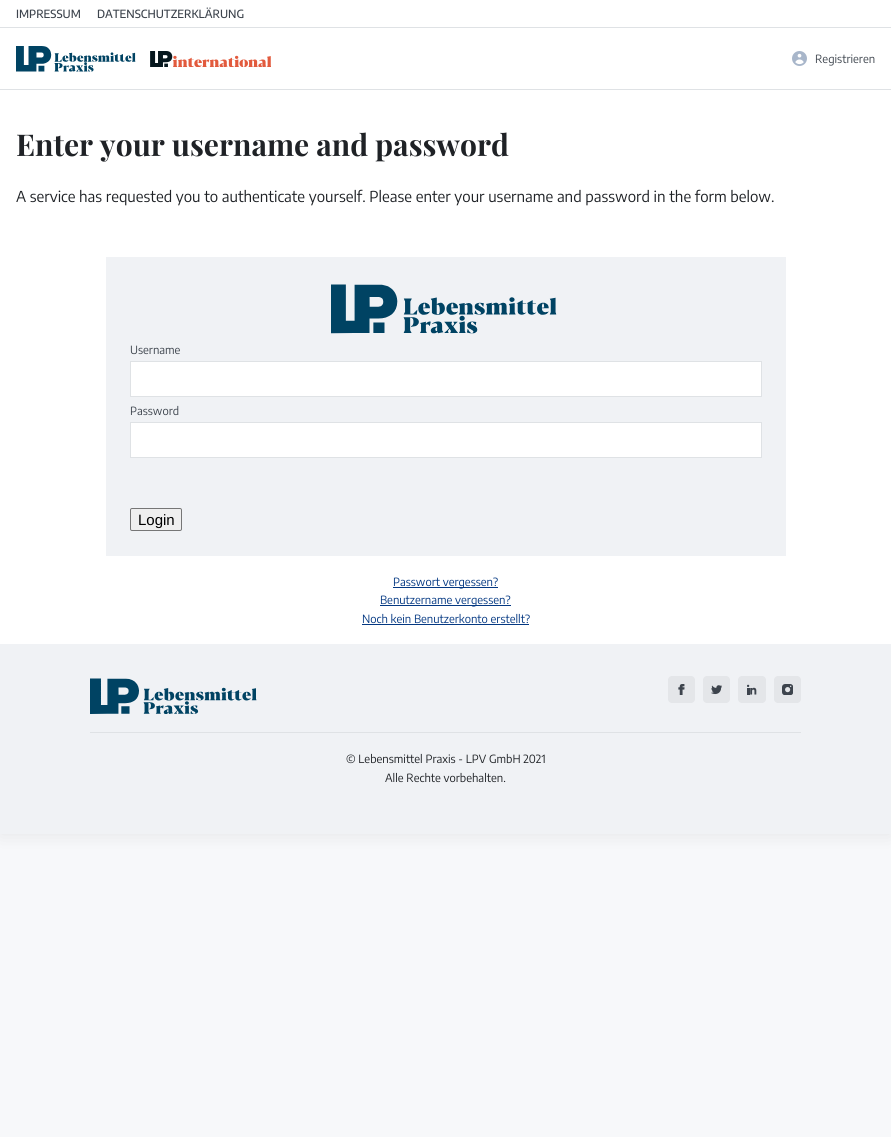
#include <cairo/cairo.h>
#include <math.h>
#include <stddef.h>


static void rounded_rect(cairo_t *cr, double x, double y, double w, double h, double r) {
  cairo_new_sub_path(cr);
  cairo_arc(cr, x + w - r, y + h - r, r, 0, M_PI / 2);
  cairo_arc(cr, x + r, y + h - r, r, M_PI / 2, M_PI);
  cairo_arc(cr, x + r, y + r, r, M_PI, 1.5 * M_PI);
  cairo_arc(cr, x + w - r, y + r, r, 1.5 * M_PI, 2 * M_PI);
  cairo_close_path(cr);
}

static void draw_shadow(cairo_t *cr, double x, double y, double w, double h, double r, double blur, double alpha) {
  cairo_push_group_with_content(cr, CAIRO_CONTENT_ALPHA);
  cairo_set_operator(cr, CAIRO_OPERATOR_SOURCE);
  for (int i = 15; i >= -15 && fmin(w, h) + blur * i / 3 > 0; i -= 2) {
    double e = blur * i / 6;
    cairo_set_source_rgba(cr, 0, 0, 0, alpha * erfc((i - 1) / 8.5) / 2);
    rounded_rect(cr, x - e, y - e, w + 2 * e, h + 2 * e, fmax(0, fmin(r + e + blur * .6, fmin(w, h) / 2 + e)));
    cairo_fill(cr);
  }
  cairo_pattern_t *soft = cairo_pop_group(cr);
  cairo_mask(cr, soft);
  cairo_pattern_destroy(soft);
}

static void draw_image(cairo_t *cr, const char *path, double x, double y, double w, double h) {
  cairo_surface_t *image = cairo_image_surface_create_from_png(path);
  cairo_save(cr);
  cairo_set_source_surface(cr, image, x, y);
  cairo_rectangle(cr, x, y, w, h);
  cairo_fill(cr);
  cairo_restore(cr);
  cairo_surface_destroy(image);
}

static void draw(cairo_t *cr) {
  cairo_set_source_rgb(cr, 247 / 255.0, 248 / 255.0, 250 / 255.0);
  cairo_paint(cr);
  cairo_set_source_rgb(cr, 0, 0, 0);
  draw_shadow(cr, 0, 0, 891, 834, 0, 10, 0.08);
  cairo_set_source_rgb(cr, 1, 1, 1);
  cairo_rectangle(cr, 0, 0, 891, 644);
  cairo_fill(cr);
  cairo_set_source_rgb(cr, 223 / 255.0, 226 / 255.0, 229 / 255.0);
  cairo_rectangle(cr, 0, 27, 891, 1);
  cairo_fill(cr);
  cairo_rectangle(cr, 0, 89, 891, 1);
  cairo_fill(cr);
  draw_image(cr, "images/1.png", 16, 46, 120, 26);
  draw_image(cr, "images/2.png", 150, 51, 121, 16);
  draw_image(cr, "images/3.png", 792, 51, 15, 15);
  cairo_set_source_rgb(cr, 240 / 255.0, 242 / 255.0, 245 / 255.0);
  cairo_rectangle(cr, 106, 257, 680, 299);
  cairo_fill(cr);
  draw_image(cr, "images/4.png", 331, 284, 226, 50);
  cairo_set_source_rgb(cr, 1, 1, 1);
  cairo_rectangle(cr, 130.5, 361.5, 631, 35);
  cairo_fill_preserve(cr);
  cairo_set_source_rgb(cr, 223 / 255.0, 226 / 255.0, 229 / 255.0);
  cairo_set_line_width(cr, 1);
  cairo_stroke(cr);
  cairo_set_source_rgb(cr, 1, 1, 1);
  cairo_rectangle(cr, 130.5, 422.5, 631, 35);
  cairo_fill_preserve(cr);
  cairo_set_source_rgb(cr, 223 / 255.0, 226 / 255.0, 229 / 255.0);
  cairo_stroke(cr);
  cairo_set_source_rgb(cr, 239 / 255.0, 239 / 255.0, 239 / 255.0);
  rounded_rect(cr, 130.5, 508.5, 51, 22, 1.5);
  cairo_fill_preserve(cr);
  cairo_set_source_rgb(cr, 118 / 255.0, 118 / 255.0, 118 / 255.0);
  cairo_stroke(cr);
  cairo_set_source_rgb(cr, 4 / 255.0, 56 / 255.0, 130 / 255.0);
  cairo_rectangle(cr, 393, 587, 105, 1);
  cairo_fill(cr);
  cairo_rectangle(cr, 380, 605, 131, 1);
  cairo_fill(cr);
  cairo_rectangle(cr, 362, 624, 167, 1);
  cairo_fill(cr);
  cairo_set_source_rgb(cr, 240 / 255.0, 242 / 255.0, 245 / 255.0);
  cairo_rectangle(cr, 0, 644, 891, 190);
  cairo_fill(cr);
  draw_image(cr, "images/5.png", 90, 678, 167, 36);
  cairo_set_source_rgb(cr, 228 / 255.0, 230 / 255.0, 233 / 255.0);
  rounded_rect(cr, 668, 676, 27, 27, 4);
  cairo_fill(cr);
  draw_image(cr, "images/6.png", 678, 684, 7, 11);
  rounded_rect(cr, 703, 676, 27, 27, 4);
  cairo_fill(cr);
  draw_image(cr, "images/7.png", 711, 685, 11, 10);
  rounded_rect(cr, 738, 676, 28, 27, 4);
  cairo_fill(cr);
  draw_image(cr, "images/8.png", 747, 684, 10, 11);
  rounded_rect(cr, 774, 676, 27, 27, 4);
  cairo_fill(cr);
  draw_image(cr, "images/9.png", 782, 684, 11, 11);
  cairo_set_source_rgb(cr, 223 / 255.0, 226 / 255.0, 229 / 255.0);
  cairo_rectangle(cr, 90, 732, 711, 1);
  cairo_fill(cr);
  cairo_select_font_face(cr, "Encode Sans Medium", CAIRO_FONT_SLANT_NORMAL, CAIRO_FONT_WEIGHT_NORMAL);
  cairo_set_font_size(cr, 11.25);
  cairo_set_source_rgb(cr, 61 / 255.0, 68 / 255.0, 77 / 255.0);
  cairo_move_to(cr, 16, 18);
  cairo_show_text(cr, "IMPRESSUM");
  cairo_move_to(cr, 97, 18);
  cairo_show_text(cr, "DATENSCHUTZERKLÄRUNG");
  cairo_select_font_face(cr, "Encode Sans", CAIRO_FONT_SLANT_NORMAL, CAIRO_FONT_WEIGHT_NORMAL);
  cairo_move_to(cr, 815, 63);
  cairo_show_text(cr, "Registrieren");
  cairo_select_font_face(cr, "Playfair Display", CAIRO_FONT_SLANT_NORMAL, CAIRO_FONT_WEIGHT_BOLD);
  cairo_set_font_size(cr, 30);
  cairo_set_source_rgb(cr, 31 / 255.0, 34 / 255.0, 38 / 255.0);
  cairo_move_to(cr, 16, 156);
  cairo_show_text(cr, "Enter your username and password");
  cairo_select_font_face(cr, "Encode Sans", CAIRO_FONT_SLANT_NORMAL, CAIRO_FONT_WEIGHT_NORMAL);
  cairo_set_font_size(cr, 15);
  cairo_move_to(cr, 16, 202);
  cairo_show_text(cr, "A service has requested you to authenticate yourself. Please enter your username and password in the form below.");
  cairo_set_font_size(cr, 11.25);
  cairo_set_source_rgb(cr, 61 / 255.0, 68 / 255.0, 77 / 255.0);
  cairo_move_to(cr, 130, 354);
  cairo_show_text(cr, "Username");
  cairo_move_to(cr, 130, 415);
  cairo_show_text(cr, "Password");
  cairo_select_font_face(cr, "Liberation Sans", CAIRO_FONT_SLANT_NORMAL, CAIRO_FONT_WEIGHT_NORMAL);
  cairo_set_font_size(cr, 15);
  cairo_set_source_rgb(cr, 0, 0, 0);
  cairo_move_to(cr, 138, 525);
  cairo_show_text(cr, "Login");
  cairo_select_font_face(cr, "Encode Sans", CAIRO_FONT_SLANT_NORMAL, CAIRO_FONT_WEIGHT_NORMAL);
  cairo_set_font_size(cr, 11.25);
  cairo_set_source_rgb(cr, 4 / 255.0, 56 / 255.0, 130 / 255.0);
  cairo_move_to(cr, 393, 586);
  cairo_show_text(cr, "Passwort vergessen?");
  cairo_move_to(cr, 380, 604);
  cairo_show_text(cr, "Benutzername vergessen?");
  cairo_move_to(cr, 362, 623);
  cairo_show_text(cr, "Noch kein Benutzerkonto erstellt?");
  cairo_set_source_rgb(cr, 31 / 255.0, 34 / 255.0, 38 / 255.0);
  cairo_move_to(cr, 346, 763);
  cairo_show_text(cr, "© Lebensmittel Praxis - LPV GmbH 2021");
  cairo_move_to(cr, 385, 782);
  cairo_show_text(cr, "Alle Rechte vorbehalten.");
}

int main(void) {
  cairo_surface_t *surface = cairo_image_surface_create(CAIRO_FORMAT_RGB24, 891, 1137);
  cairo_t *cr = cairo_create(surface);
  cairo_font_options_t *options = cairo_font_options_create();
  cairo_font_options_set_hint_metrics(options, CAIRO_HINT_METRICS_OFF);
  cairo_font_options_set_hint_style(options, CAIRO_HINT_STYLE_NONE);
  cairo_set_font_options(cr, options);
  cairo_set_miter_limit(cr, 4);
  draw(cr);
  cairo_surface_write_to_png(surface, "out.png");
  cairo_font_options_destroy(options);
  cairo_destroy(cr);
  cairo_surface_destroy(surface);
  return 0;
}
